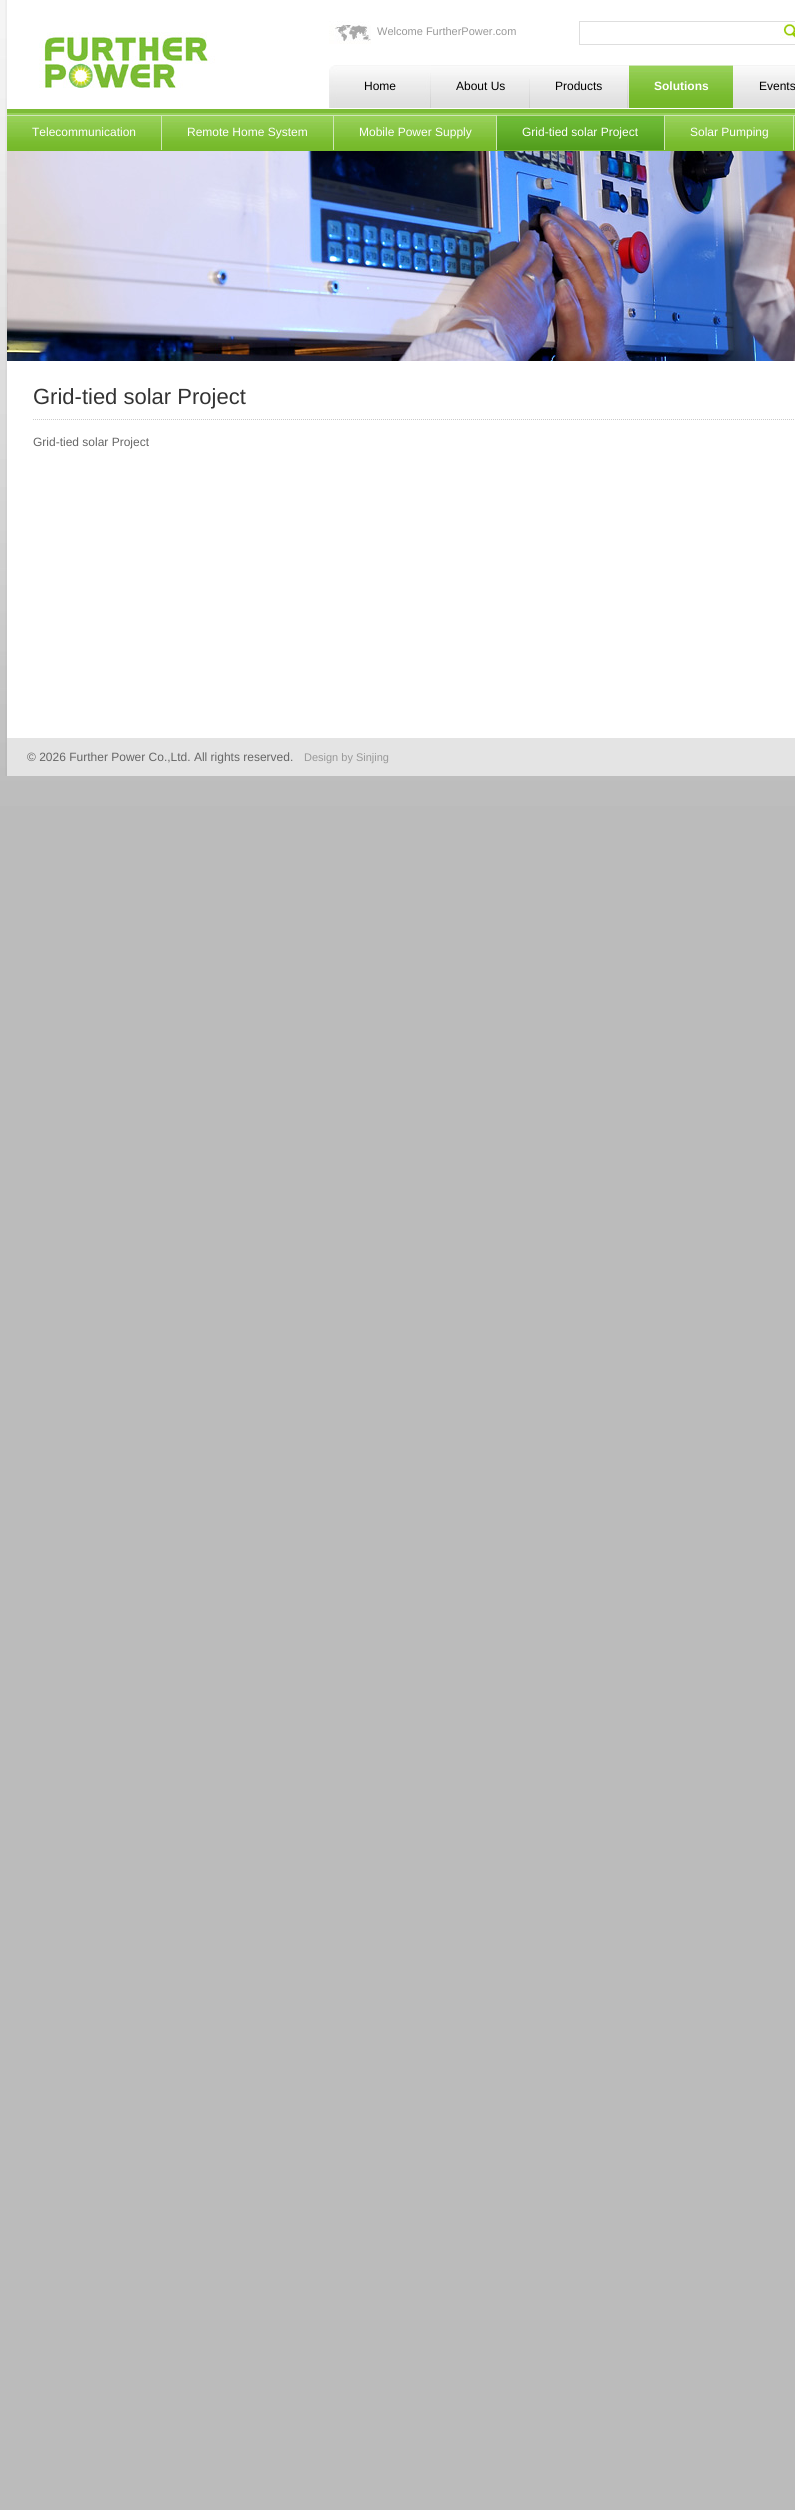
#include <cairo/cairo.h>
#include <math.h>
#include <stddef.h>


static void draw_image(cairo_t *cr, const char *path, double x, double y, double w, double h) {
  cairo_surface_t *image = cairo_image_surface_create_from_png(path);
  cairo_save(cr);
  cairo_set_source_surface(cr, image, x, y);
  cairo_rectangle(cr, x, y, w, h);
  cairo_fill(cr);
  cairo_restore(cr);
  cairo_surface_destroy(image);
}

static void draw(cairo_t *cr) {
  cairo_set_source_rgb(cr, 1, 1, 1);
  cairo_paint(cr);
  draw_image(cr, "images/1.png", 0, 0, 795, 2510);
  draw_image(cr, "images/2.png", 5, 0, 790, 776);
  cairo_set_source_rgb(cr, 125 / 255.0, 188 / 255.0, 56 / 255.0);
  cairo_rectangle(cr, 7, 109, 788, 4);
  cairo_fill(cr);
  draw_image(cr, "images/3.png", 39, 32, 176, 56);
  draw_image(cr, "images/4.png", 329, 21, 42, 23);
  cairo_rectangle(cr, 579.5, 21.5, 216, 23);
  cairo_set_source_rgb(cr, 222 / 255.0, 222 / 255.0, 222 / 255.0);
  cairo_set_line_width(cr, 1);
  cairo_stroke(cr);
  draw_image(cr, "images/5.png", 780, 23, 15, 16);
  draw_image(cr, "images/6.png", 431, 65, 364, 43);
  draw_image(cr, "images/7.png", 329, 65, 102, 43);
  draw_image(cr, "images/8.png", 529, 79, 1, 29);
  draw_image(cr, "images/8.png", 627, 79, 1, 29);
  draw_image(cr, "images/9.png", 629, 65, 104, 43);
  draw_image(cr, "images/10.png", 7, 113, 788, 38);
  draw_image(cr, "images/11.png", 7, 115, 788, 22);
  cairo_set_source_rgb(cr, 207 / 255.0, 230 / 255.0, 184 / 255.0);
  cairo_rectangle(cr, 161, 115, 1, 35);
  cairo_fill(cr);
  cairo_rectangle(cr, 333, 115, 1, 35);
  cairo_fill(cr);
  cairo_rectangle(cr, 496, 115, 1, 35);
  cairo_fill(cr);
  cairo_rectangle(cr, 664, 115, 1, 35);
  cairo_fill(cr);
  draw_image(cr, "images/12.png", 497, 115, 167, 35);
  cairo_rectangle(cr, 793, 115, 1, 35);
  cairo_fill(cr);
  draw_image(cr, "images/13.png", 7, 151, 788, 210);
  cairo_new_path(cr);
  cairo_move_to(cr, 33, 419.5);
  cairo_line_to(cr, 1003, 419.5);
  cairo_set_source_rgb(cr, 204 / 255.0, 204 / 255.0, 204 / 255.0);
  cairo_set_dash(cr, (double[]){1, 1}, 2, 0);
  cairo_stroke(cr);
  cairo_set_source_rgb(cr, 228 / 255.0, 228 / 255.0, 228 / 255.0);
  cairo_rectangle(cr, 7, 738, 788, 38);
  cairo_fill(cr);
  cairo_select_font_face(cr, "Liberation Sans", CAIRO_FONT_SLANT_NORMAL, CAIRO_FONT_WEIGHT_NORMAL);
  cairo_set_font_size(cr, 11);
  cairo_set_source_rgb(cr, 153 / 255.0, 153 / 255.0, 153 / 255.0);
  cairo_move_to(cr, 377, 35);
  cairo_show_text(cr, "Welcome FurtherPower.com");
  cairo_set_font_size(cr, 12);
  cairo_set_source_rgb(cr, 0, 0, 0);
  cairo_move_to(cr, 364, 90);
  cairo_show_text(cr, "Home");
  cairo_move_to(cr, 456, 90);
  cairo_show_text(cr, "About Us");
  cairo_move_to(cr, 555, 90);
  cairo_show_text(cr, "Products");
  cairo_select_font_face(cr, "Liberation Sans", CAIRO_FONT_SLANT_NORMAL, CAIRO_FONT_WEIGHT_BOLD);
  cairo_set_source_rgb(cr, 1, 1, 1);
  cairo_move_to(cr, 654, 90);
  cairo_show_text(cr, "Solutions");
  cairo_select_font_face(cr, "Liberation Sans", CAIRO_FONT_SLANT_NORMAL, CAIRO_FONT_WEIGHT_NORMAL);
  cairo_set_source_rgb(cr, 0, 0, 0);
  cairo_move_to(cr, 759, 90);
  cairo_show_text(cr, "Events");
  cairo_set_source_rgb(cr, 1, 1, 1);
  cairo_move_to(cr, 32, 136);
  cairo_show_text(cr, "Telecommunication");
  cairo_move_to(cr, 187, 136);
  cairo_show_text(cr, "Remote Home System");
  cairo_move_to(cr, 359, 136);
  cairo_show_text(cr, "Mobile Power Supply");
  cairo_move_to(cr, 522, 136);
  cairo_show_text(cr, "Grid-tied solar Project");
  cairo_move_to(cr, 690, 136);
  cairo_show_text(cr, "Solar Pumping");
  cairo_set_font_size(cr, 22);
  cairo_set_source_rgb(cr, 51 / 255.0, 51 / 255.0, 51 / 255.0);
  cairo_move_to(cr, 33, 404);
  cairo_show_text(cr, "Grid-tied solar Project");
  cairo_set_font_size(cr, 12);
  cairo_set_source_rgb(cr, 102 / 255.0, 102 / 255.0, 102 / 255.0);
  cairo_move_to(cr, 33, 446);
  cairo_show_text(cr, "Grid-tied solar Project");
  cairo_move_to(cr, 27, 761);
  cairo_show_text(cr, "© 2026 Further Power Co.,Ltd. All rights reserved.");
  cairo_set_font_size(cr, 11);
  cairo_set_source_rgb(cr, 153 / 255.0, 153 / 255.0, 153 / 255.0);
  cairo_move_to(cr, 304, 761);
  cairo_show_text(cr, "Design by Sinjing");
}

int main(void) {
  cairo_surface_t *surface = cairo_image_surface_create(CAIRO_FORMAT_RGB24, 795, 2510);
  cairo_t *cr = cairo_create(surface);
  cairo_font_options_t *options = cairo_font_options_create();
  cairo_font_options_set_hint_metrics(options, CAIRO_HINT_METRICS_OFF);
  cairo_font_options_set_hint_style(options, CAIRO_HINT_STYLE_NONE);
  cairo_set_font_options(cr, options);
  cairo_set_miter_limit(cr, 4);
  draw(cr);
  cairo_surface_write_to_png(surface, "out.png");
  cairo_font_options_destroy(options);
  cairo_destroy(cr);
  cairo_surface_destroy(surface);
  return 0;
}
